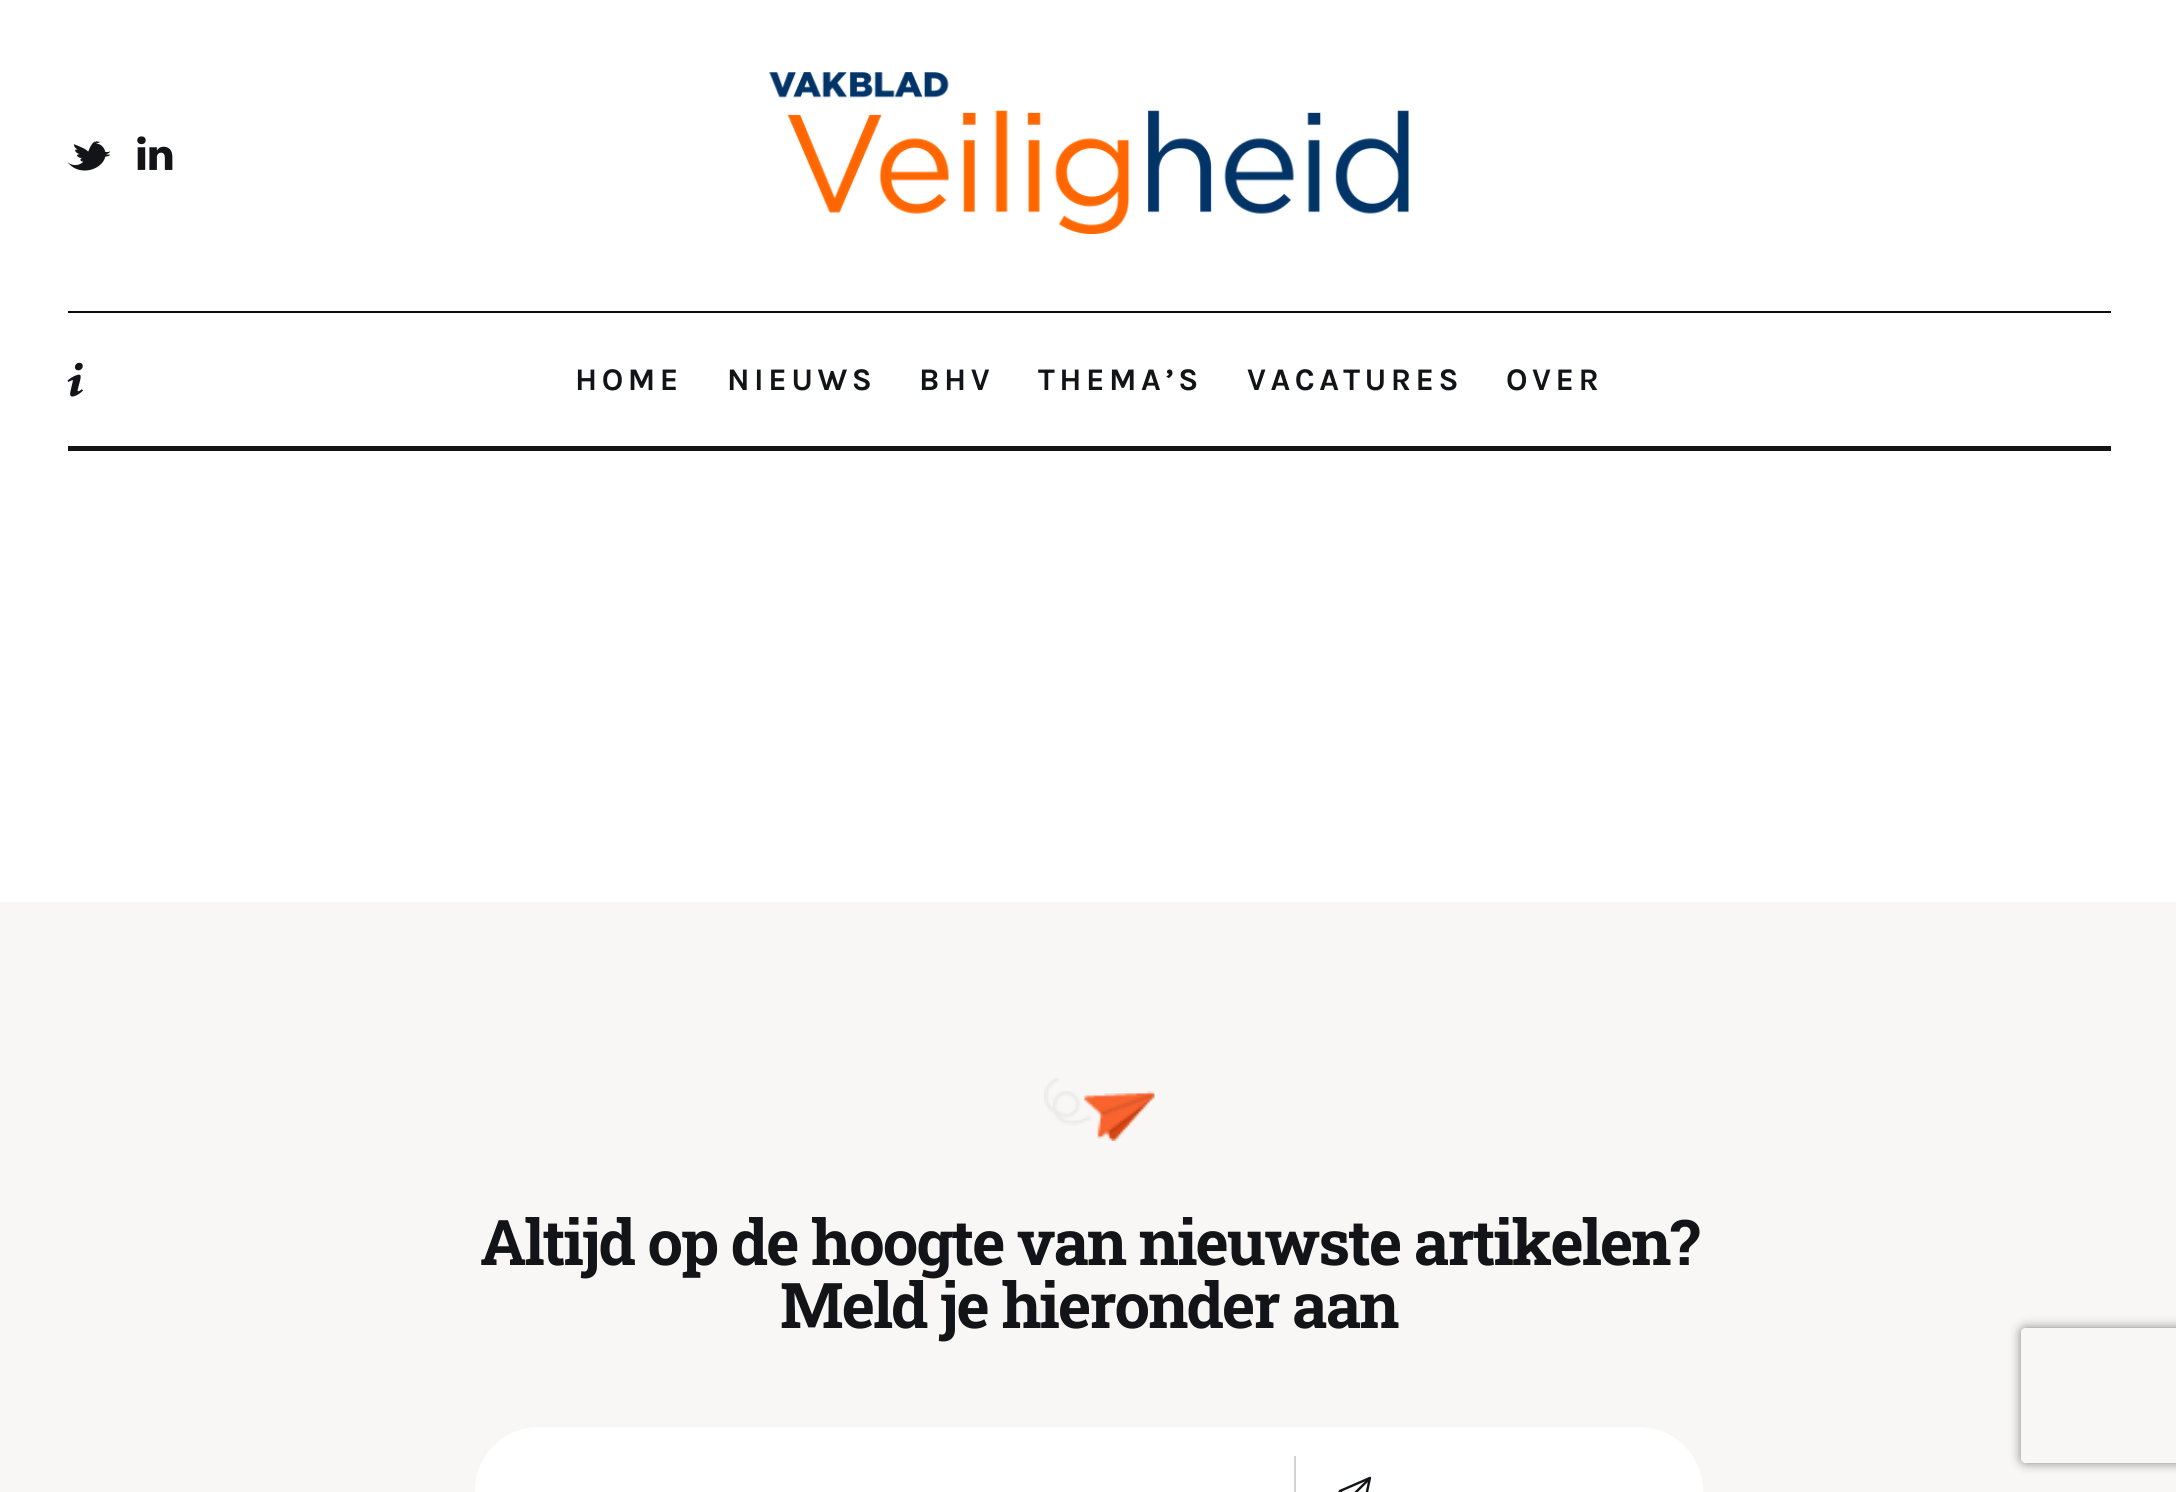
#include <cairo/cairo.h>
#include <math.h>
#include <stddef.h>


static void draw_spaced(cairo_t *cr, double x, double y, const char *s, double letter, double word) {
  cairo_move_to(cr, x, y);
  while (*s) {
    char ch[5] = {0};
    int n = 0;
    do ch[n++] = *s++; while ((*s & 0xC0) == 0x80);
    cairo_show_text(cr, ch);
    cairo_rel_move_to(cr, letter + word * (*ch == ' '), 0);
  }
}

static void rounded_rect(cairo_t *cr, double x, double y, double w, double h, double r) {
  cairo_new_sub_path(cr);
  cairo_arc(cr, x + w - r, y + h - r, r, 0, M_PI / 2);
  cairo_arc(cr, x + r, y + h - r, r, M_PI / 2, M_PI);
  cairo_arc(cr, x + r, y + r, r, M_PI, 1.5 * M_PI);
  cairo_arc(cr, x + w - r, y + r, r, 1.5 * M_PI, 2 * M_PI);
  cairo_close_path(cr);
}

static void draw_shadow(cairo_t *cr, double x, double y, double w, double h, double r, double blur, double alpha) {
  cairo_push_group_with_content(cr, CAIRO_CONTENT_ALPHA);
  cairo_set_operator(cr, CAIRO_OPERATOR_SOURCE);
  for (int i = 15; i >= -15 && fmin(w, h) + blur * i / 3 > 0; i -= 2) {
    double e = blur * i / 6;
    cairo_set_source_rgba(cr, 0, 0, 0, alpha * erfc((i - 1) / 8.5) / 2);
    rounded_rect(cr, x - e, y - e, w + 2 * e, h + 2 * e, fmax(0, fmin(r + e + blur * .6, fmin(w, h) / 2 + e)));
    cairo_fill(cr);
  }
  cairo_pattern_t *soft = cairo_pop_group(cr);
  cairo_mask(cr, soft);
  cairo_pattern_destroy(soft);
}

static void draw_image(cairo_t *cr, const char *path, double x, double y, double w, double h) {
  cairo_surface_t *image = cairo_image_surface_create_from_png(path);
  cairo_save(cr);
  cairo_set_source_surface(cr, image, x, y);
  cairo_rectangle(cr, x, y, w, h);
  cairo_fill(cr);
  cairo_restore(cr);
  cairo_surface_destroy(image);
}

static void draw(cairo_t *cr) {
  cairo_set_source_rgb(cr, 1, 1, 1);
  cairo_paint(cr);
  draw_image(cr, "images/1.png", 67, 141, 44, 30);
  draw_image(cr, "images/2.png", 137, 136, 36, 34);
  draw_image(cr, "images/3.png", 769, 72, 640, 162);
  cairo_set_source_rgb(cr, 12 / 255.0, 13 / 255.0, 14 / 255.0);
  cairo_rectangle(cr, 68, 311, 2043, 2);
  cairo_fill(cr);
  draw_image(cr, "images/4.png", 67, 362, 16, 35);
  cairo_set_source_rgb(cr, 18 / 255.0, 20 / 255.0, 24 / 255.0);
  cairo_rectangle(cr, 68, 446, 2043, 5);
  cairo_fill(cr);
  cairo_set_source_rgb(cr, 248 / 255.0, 247 / 255.0, 245 / 255.0);
  cairo_rectangle(cr, 0, 902, 2176, 590);
  cairo_fill(cr);
  draw_image(cr, "images/5.png", 1044, 1078, 111, 63);
  cairo_set_source_rgb(cr, 1, 1, 1);
  rounded_rect(cr, 475, 1427, 1228, 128, 64);
  cairo_fill(cr);
  cairo_set_source_rgb(cr, 210 / 255.0, 212 / 255.0, 212 / 255.0);
  cairo_rectangle(cr, 1294, 1456, 2, 36);
  cairo_fill(cr);
  draw_image(cr, "images/6.png", 1338, 1476, 34, 16);
  cairo_save(cr);
  cairo_set_fill_rule(cr, CAIRO_FILL_RULE_EVEN_ODD);
  cairo_new_path(cr);
  cairo_move_to(cr, 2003, 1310);
  cairo_line_to(cr, 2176, 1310);
  cairo_line_to(cr, 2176, 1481);
  cairo_line_to(cr, 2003, 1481);
  cairo_close_path(cr);
  cairo_move_to(cr, 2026, 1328);
  cairo_line_to(cr, 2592, 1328);
  cairo_curve_to(cr, 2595, 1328, 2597, 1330, 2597, 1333);
  cairo_line_to(cr, 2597, 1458);
  cairo_curve_to(cr, 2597, 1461, 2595, 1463, 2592, 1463);
  cairo_line_to(cr, 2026, 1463);
  cairo_curve_to(cr, 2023, 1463, 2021, 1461, 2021, 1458);
  cairo_line_to(cr, 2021, 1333);
  cairo_curve_to(cr, 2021, 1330, 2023, 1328, 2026, 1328);
  cairo_close_path(cr);
  cairo_clip(cr);
  cairo_set_source_rgb(cr, 128 / 255.0, 128 / 255.0, 128 / 255.0);
  draw_shadow(cr, 2021, 1328, 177, 135, 5, 5.5, 1);
  cairo_restore(cr);
  cairo_select_font_face(cr, "Karla", CAIRO_FONT_SLANT_NORMAL, CAIRO_FONT_WEIGHT_BOLD);
  cairo_set_font_size(cr, 31.5);
  cairo_set_source_rgb(cr, 18 / 255.0, 20 / 255.0, 24 / 255.0);
  draw_spaced(cr, 575, 390, "HOME", 4.5, 0);
  draw_spaced(cr, 727, 390, "NIEUWS", 4.5, 0);
  draw_spaced(cr, 919, 390, "BHV", 4.5, 0);
  draw_spaced(cr, 1038, 390, "THEMA’S", 4.5, 0);
  draw_spaced(cr, 1247, 390, "VACATURES", 4.5, 0);
  draw_spaced(cr, 1506, 390, "OVER", 4.5, 0);
  cairo_select_font_face(cr, "Roboto Slab", CAIRO_FONT_SLANT_NORMAL, CAIRO_FONT_WEIGHT_BOLD);
  cairo_set_font_size(cr, 63);
  draw_spaced(cr, 480, 1265, "Altijd op de hoogte van nieuwste artikelen?", -1.9, 0);
  draw_spaced(cr, 780, 1328, "Meld je hieronder aan", -1.9, 0);
}

int main(void) {
  cairo_surface_t *surface = cairo_image_surface_create(CAIRO_FORMAT_RGB24, 2176, 1492);
  cairo_t *cr = cairo_create(surface);
  cairo_font_options_t *options = cairo_font_options_create();
  cairo_font_options_set_hint_metrics(options, CAIRO_HINT_METRICS_OFF);
  cairo_font_options_set_hint_style(options, CAIRO_HINT_STYLE_NONE);
  cairo_set_font_options(cr, options);
  cairo_set_miter_limit(cr, 4);
  draw(cr);
  cairo_surface_write_to_png(surface, "out.png");
  cairo_font_options_destroy(options);
  cairo_destroy(cr);
  cairo_surface_destroy(surface);
  return 0;
}
